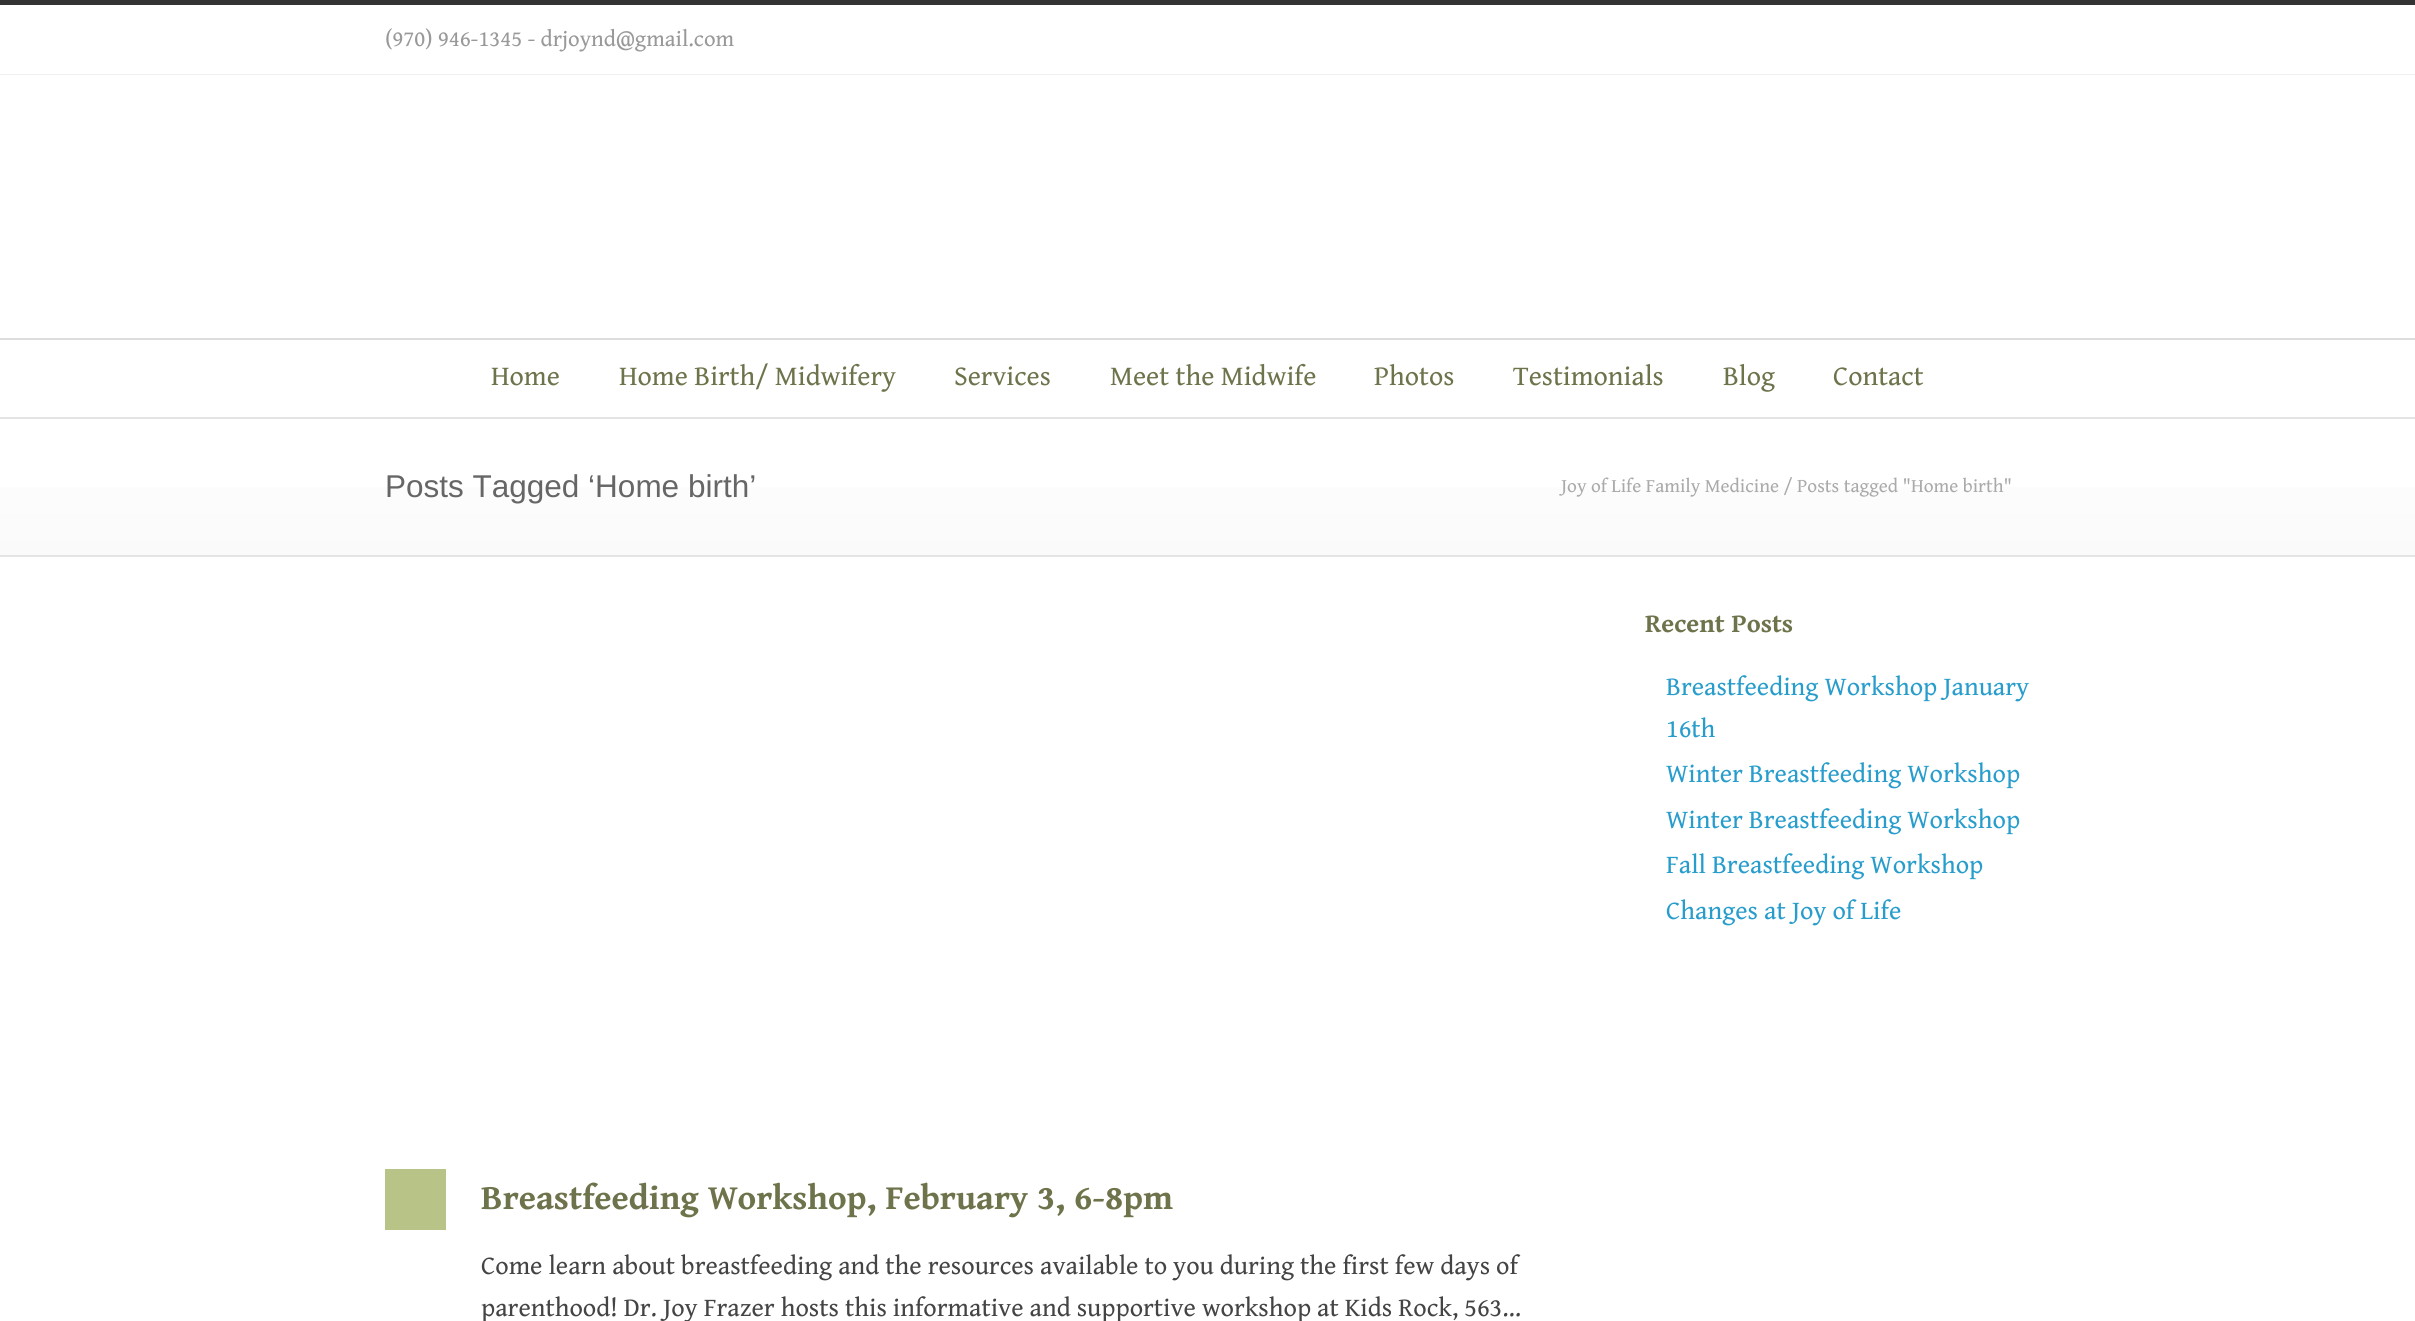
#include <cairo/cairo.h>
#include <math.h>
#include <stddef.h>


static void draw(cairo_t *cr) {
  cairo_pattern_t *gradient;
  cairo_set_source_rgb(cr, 1, 1, 1);
  cairo_paint(cr);
  cairo_set_source_rgb(cr, 51 / 255.0, 51 / 255.0, 51 / 255.0);
  cairo_rectangle(cr, 0, 0, 2415, 5);
  cairo_fill(cr);
  cairo_set_source_rgb(cr, 239 / 255.0, 239 / 255.0, 239 / 255.0);
  cairo_rectangle(cr, 0, 74, 2415, 1);
  cairo_fill(cr);
  cairo_set_source_rgb(cr, 221 / 255.0, 221 / 255.0, 221 / 255.0);
  cairo_rectangle(cr, 0, 338, 2415, 2);
  cairo_fill(cr);
  gradient = cairo_pattern_create_linear(1208, 555, 1208, 418);
  cairo_pattern_add_color_stop_rgba(gradient, 0, 250 / 255.0, 250 / 255.0, 250 / 255.0, 1);
  cairo_pattern_add_color_stop_rgba(gradient, 1, 1, 1, 1, 1);
  cairo_set_source(cr, gradient);
  cairo_pattern_destroy(gradient);
  cairo_rectangle(cr, 0, 487, 2415, 68);
  cairo_fill(cr);
  cairo_set_source_rgb(cr, 228 / 255.0, 228 / 255.0, 228 / 255.0);
  cairo_rectangle(cr, 0, 417, 2415, 2);
  cairo_fill(cr);
  cairo_rectangle(cr, 0, 555, 2415, 2);
  cairo_fill(cr);
  cairo_set_source_rgb(cr, 183 / 255.0, 195 / 255.0, 135 / 255.0);
  cairo_rectangle(cr, 385, 1169, 61, 61);
  cairo_fill(cr);
  cairo_select_font_face(cr, "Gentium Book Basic", CAIRO_FONT_SLANT_NORMAL, CAIRO_FONT_WEIGHT_NORMAL);
  cairo_set_font_size(cr, 22.75);
  cairo_set_source_rgb(cr, 153 / 255.0, 153 / 255.0, 153 / 255.0);
  cairo_move_to(cr, 385, 46);
  cairo_show_text(cr, "(970) 946-1345 - drjoynd@gmail.com");
  cairo_set_font_size(cr, 28);
  cairo_set_source_rgb(cr, 111 / 255.0, 115 / 255.0, 75 / 255.0);
  cairo_move_to(cr, 491, 385);
  cairo_show_text(cr, "Home");
  cairo_move_to(cr, 619, 385);
  cairo_show_text(cr, "Home Birth/ Midwifery");
  cairo_move_to(cr, 954, 385);
  cairo_show_text(cr, "Services");
  cairo_move_to(cr, 1110, 385);
  cairo_show_text(cr, "Meet the Midwife");
  cairo_move_to(cr, 1374, 385);
  cairo_show_text(cr, "Photos");
  cairo_move_to(cr, 1513, 385);
  cairo_show_text(cr, "Testimonials");
  cairo_move_to(cr, 1723, 385);
  cairo_show_text(cr, "Blog");
  cairo_move_to(cr, 1833, 385);
  cairo_show_text(cr, "Contact");
  cairo_select_font_face(cr, "Liberation Sans", CAIRO_FONT_SLANT_NORMAL, CAIRO_FONT_WEIGHT_NORMAL);
  cairo_set_font_size(cr, 31.5);
  cairo_set_source_rgb(cr, 102 / 255.0, 102 / 255.0, 102 / 255.0);
  cairo_move_to(cr, 385, 497);
  cairo_show_text(cr, "Posts Tagged ‘Home birth’");
  cairo_select_font_face(cr, "Gentium Book Basic", CAIRO_FONT_SLANT_NORMAL, CAIRO_FONT_WEIGHT_NORMAL);
  cairo_set_font_size(cr, 19.25);
  cairo_set_source_rgb(cr, 170 / 255.0, 170 / 255.0, 170 / 255.0);
  cairo_move_to(cr, 1561, 492);
  cairo_show_text(cr, "Joy of Life Family Medicine / Posts tagged \"Home birth\"");
  cairo_select_font_face(cr, "Gentium Book Basic", CAIRO_FONT_SLANT_NORMAL, CAIRO_FONT_WEIGHT_BOLD);
  cairo_set_font_size(cr, 26.25);
  cairo_set_source_rgb(cr, 111 / 255.0, 115 / 255.0, 75 / 255.0);
  cairo_move_to(cr, 1645, 632);
  cairo_show_text(cr, "Recent Posts");
  cairo_select_font_face(cr, "Gentium Book Basic", CAIRO_FONT_SLANT_NORMAL, CAIRO_FONT_WEIGHT_NORMAL);
  cairo_set_source_rgb(cr, 40 / 255.0, 157 / 255.0, 204 / 255.0);
  cairo_move_to(cr, 1666, 695);
  cairo_show_text(cr, "Breastfeeding Workshop January");
  cairo_move_to(cr, 1666, 737);
  cairo_show_text(cr, "16th");
  cairo_move_to(cr, 1666, 782);
  cairo_show_text(cr, "Winter Breastfeeding Workshop");
  cairo_move_to(cr, 1666, 828);
  cairo_show_text(cr, "Winter Breastfeeding Workshop");
  cairo_move_to(cr, 1666, 873);
  cairo_show_text(cr, "Fall Breastfeeding Workshop");
  cairo_move_to(cr, 1666, 919);
  cairo_show_text(cr, "Changes at Joy of Life");
  cairo_select_font_face(cr, "Gentium Book Basic", CAIRO_FONT_SLANT_NORMAL, CAIRO_FONT_WEIGHT_BOLD);
  cairo_set_font_size(cr, 35);
  cairo_set_source_rgb(cr, 111 / 255.0, 115 / 255.0, 75 / 255.0);
  cairo_move_to(cr, 481, 1209);
  cairo_show_text(cr, "Breastfeeding Workshop, February 3, 6-8pm");
  cairo_select_font_face(cr, "Gentium Book Basic", CAIRO_FONT_SLANT_NORMAL, CAIRO_FONT_WEIGHT_NORMAL);
  cairo_set_font_size(cr, 26.25);
  cairo_set_source_rgb(cr, 68 / 255.0, 68 / 255.0, 68 / 255.0);
  cairo_move_to(cr, 481, 1274);
  cairo_show_text(cr, "Come learn about breastfeeding and the resources available to you during the first few days of");
  cairo_move_to(cr, 481, 1316);
  cairo_show_text(cr, "parenthood! Dr. Joy Frazer hosts this informative and supportive workshop at Kids Rock, 563…");
}

int main(void) {
  cairo_surface_t *surface = cairo_image_surface_create(CAIRO_FORMAT_RGB24, 2415, 1321);
  cairo_t *cr = cairo_create(surface);
  cairo_font_options_t *options = cairo_font_options_create();
  cairo_font_options_set_hint_metrics(options, CAIRO_HINT_METRICS_OFF);
  cairo_font_options_set_hint_style(options, CAIRO_HINT_STYLE_NONE);
  cairo_set_font_options(cr, options);
  cairo_set_miter_limit(cr, 4);
  draw(cr);
  cairo_surface_write_to_png(surface, "out.png");
  cairo_font_options_destroy(options);
  cairo_destroy(cr);
  cairo_surface_destroy(surface);
  return 0;
}
